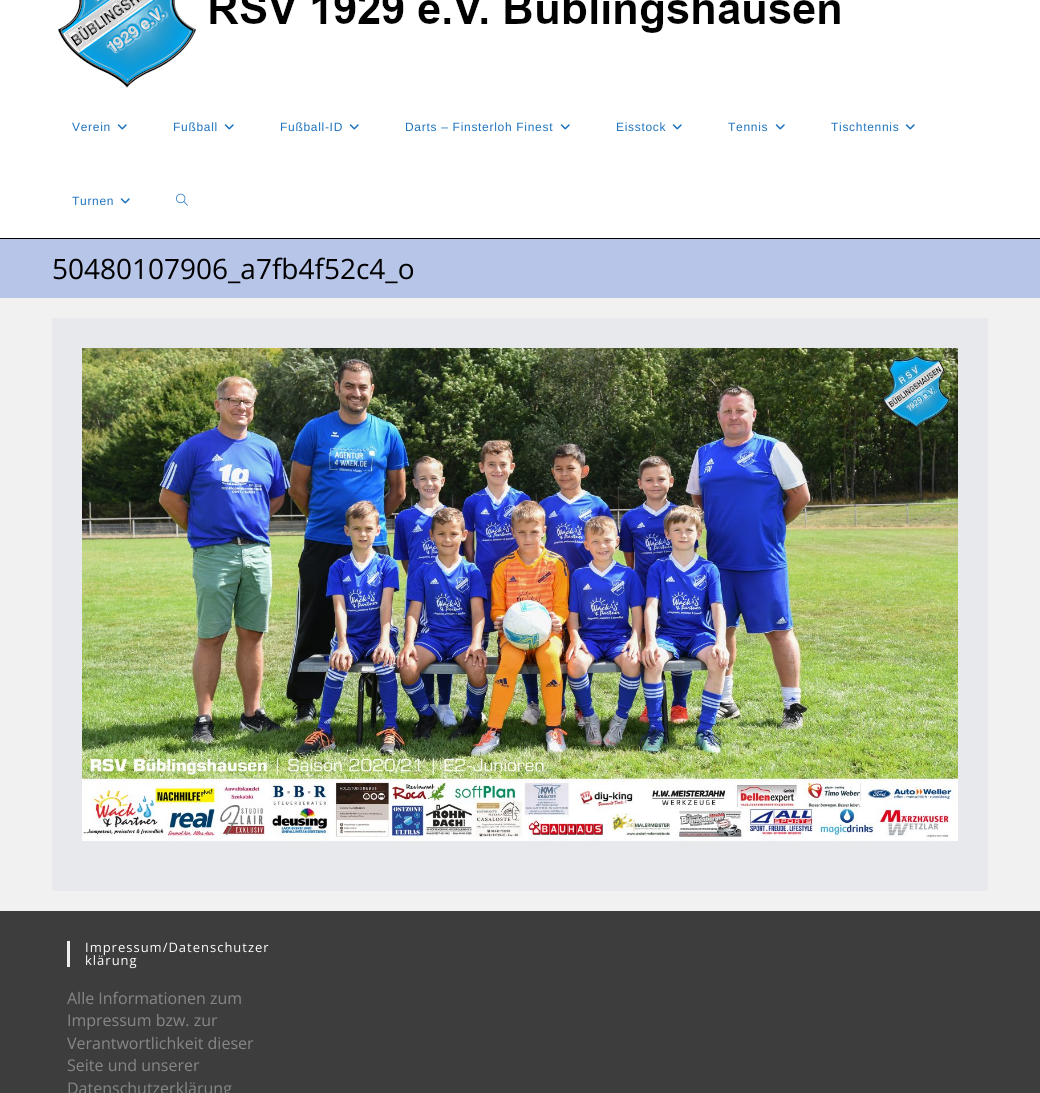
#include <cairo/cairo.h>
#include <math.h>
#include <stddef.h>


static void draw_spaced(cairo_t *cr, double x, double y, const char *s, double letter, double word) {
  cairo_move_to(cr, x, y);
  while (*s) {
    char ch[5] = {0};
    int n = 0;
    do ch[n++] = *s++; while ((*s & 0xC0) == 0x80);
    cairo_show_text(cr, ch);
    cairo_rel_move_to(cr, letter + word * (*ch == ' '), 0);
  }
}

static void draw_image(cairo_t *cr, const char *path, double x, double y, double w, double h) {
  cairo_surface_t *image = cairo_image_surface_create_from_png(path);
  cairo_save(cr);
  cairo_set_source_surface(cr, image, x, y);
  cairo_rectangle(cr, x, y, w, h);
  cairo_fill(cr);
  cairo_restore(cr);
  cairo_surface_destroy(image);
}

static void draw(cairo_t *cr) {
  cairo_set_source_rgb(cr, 241 / 255.0, 241 / 255.0, 241 / 255.0);
  cairo_paint(cr);
  cairo_set_source_rgb(cr, 1, 1, 1);
  cairo_rectangle(cr, 0, 0, 1040, 238);
  cairo_fill(cr);
  cairo_set_source_rgb(cr, 0, 0, 0);
  cairo_rectangle(cr, 0, 238, 1040, 1);
  cairo_fill(cr);
  draw_image(cr, "images/1.png", 58, 0, 782, 88);
  draw_image(cr, "images/2.png", 117, 124, 10, 6);
  draw_image(cr, "images/2.png", 224, 124, 10, 6);
  draw_image(cr, "images/2.png", 349, 124, 10, 6);
  draw_image(cr, "images/2.png", 560, 124, 10, 6);
  draw_image(cr, "images/2.png", 672, 124, 10, 6);
  draw_image(cr, "images/2.png", 775, 124, 10, 6);
  draw_image(cr, "images/2.png", 905, 124, 10, 6);
  draw_image(cr, "images/2.png", 120, 198, 10, 6);
  draw_image(cr, "images/3.png", 176, 193, 12, 13);
  cairo_set_source_rgb(cr, 183 / 255.0, 197 / 255.0, 232 / 255.0);
  cairo_rectangle(cr, 0, 239, 1040, 59);
  cairo_fill(cr);
  cairo_set_source_rgb(cr, 232 / 255.0, 233 / 255.0, 237 / 255.0);
  cairo_rectangle(cr, 52, 318, 936, 573);
  cairo_fill(cr);
  draw_image(cr, "images/4.png", 82, 348, 876, 493);
  cairo_set_source_rgb(cr, 61 / 255.0, 61 / 255.0, 61 / 255.0);
  cairo_rectangle(cr, 0, 911, 1040, 182);
  cairo_fill(cr);
  cairo_set_source_rgb(cr, 239 / 255.0, 239 / 255.0, 239 / 255.0);
  cairo_rectangle(cr, 67, 941, 3, 26);
  cairo_fill(cr);
  cairo_select_font_face(cr, "Liberation Sans", CAIRO_FONT_SLANT_NORMAL, CAIRO_FONT_WEIGHT_NORMAL);
  cairo_set_font_size(cr, 12);
  cairo_set_source_rgb(cr, 30 / 255.0, 115 / 255.0, 190 / 255.0);
  draw_spaced(cr, 72, 131, "Verein", 0.7, 0);
  draw_spaced(cr, 173, 131, "Fußball", 0.7, 0);
  draw_spaced(cr, 280, 131, "Fußball-ID", 0.7, 0);
  draw_spaced(cr, 405, 131, "Darts – Finsterloh Finest", 0.7, 0);
  draw_spaced(cr, 616, 131, "Eisstock", 0.7, 0);
  draw_spaced(cr, 728, 131, "Tennis", 0.7, 0);
  draw_spaced(cr, 831, 131, "Tischtennis", 0.7, 0);
  draw_spaced(cr, 72, 205, "Turnen", 0.7, 0);
  cairo_select_font_face(cr, "Open Sans", CAIRO_FONT_SLANT_NORMAL, CAIRO_FONT_WEIGHT_NORMAL);
  cairo_set_font_size(cr, 28);
  cairo_set_source_rgb(cr, 0, 0, 0);
  cairo_move_to(cr, 52, 279);
  cairo_show_text(cr, "50480107906_a7fb4f52c4_o");
  cairo_set_font_size(cr, 13);
  cairo_set_source_rgb(cr, 1, 1, 1);
  draw_spaced(cr, 85, 952, "Impressum/Datenschutzer", 1, 0);
  draw_spaced(cr, 85, 965, "klärung", 1, 0);
  cairo_set_font_size(cr, 16);
  cairo_set_source_rgb(cr, 135 / 255.0, 135 / 255.0, 135 / 255.0);
  cairo_move_to(cr, 67, 1004);
  cairo_show_text(cr, "Alle Informationen zum");
  cairo_move_to(cr, 67, 1026);
  cairo_show_text(cr, "Impressum bzw. zur");
  cairo_move_to(cr, 67, 1049);
  cairo_show_text(cr, "Verantwortlichkeit dieser");
  cairo_move_to(cr, 67, 1071);
  cairo_show_text(cr, "Seite und unserer");
  cairo_move_to(cr, 67, 1094);
  cairo_show_text(cr, "Datenschutzerklärung");
}

int main(void) {
  cairo_surface_t *surface = cairo_image_surface_create(CAIRO_FORMAT_RGB24, 1040, 1093);
  cairo_t *cr = cairo_create(surface);
  cairo_font_options_t *options = cairo_font_options_create();
  cairo_font_options_set_hint_metrics(options, CAIRO_HINT_METRICS_OFF);
  cairo_font_options_set_hint_style(options, CAIRO_HINT_STYLE_NONE);
  cairo_set_font_options(cr, options);
  cairo_set_miter_limit(cr, 4);
  draw(cr);
  cairo_surface_write_to_png(surface, "out.png");
  cairo_font_options_destroy(options);
  cairo_destroy(cr);
  cairo_surface_destroy(surface);
  return 0;
}
